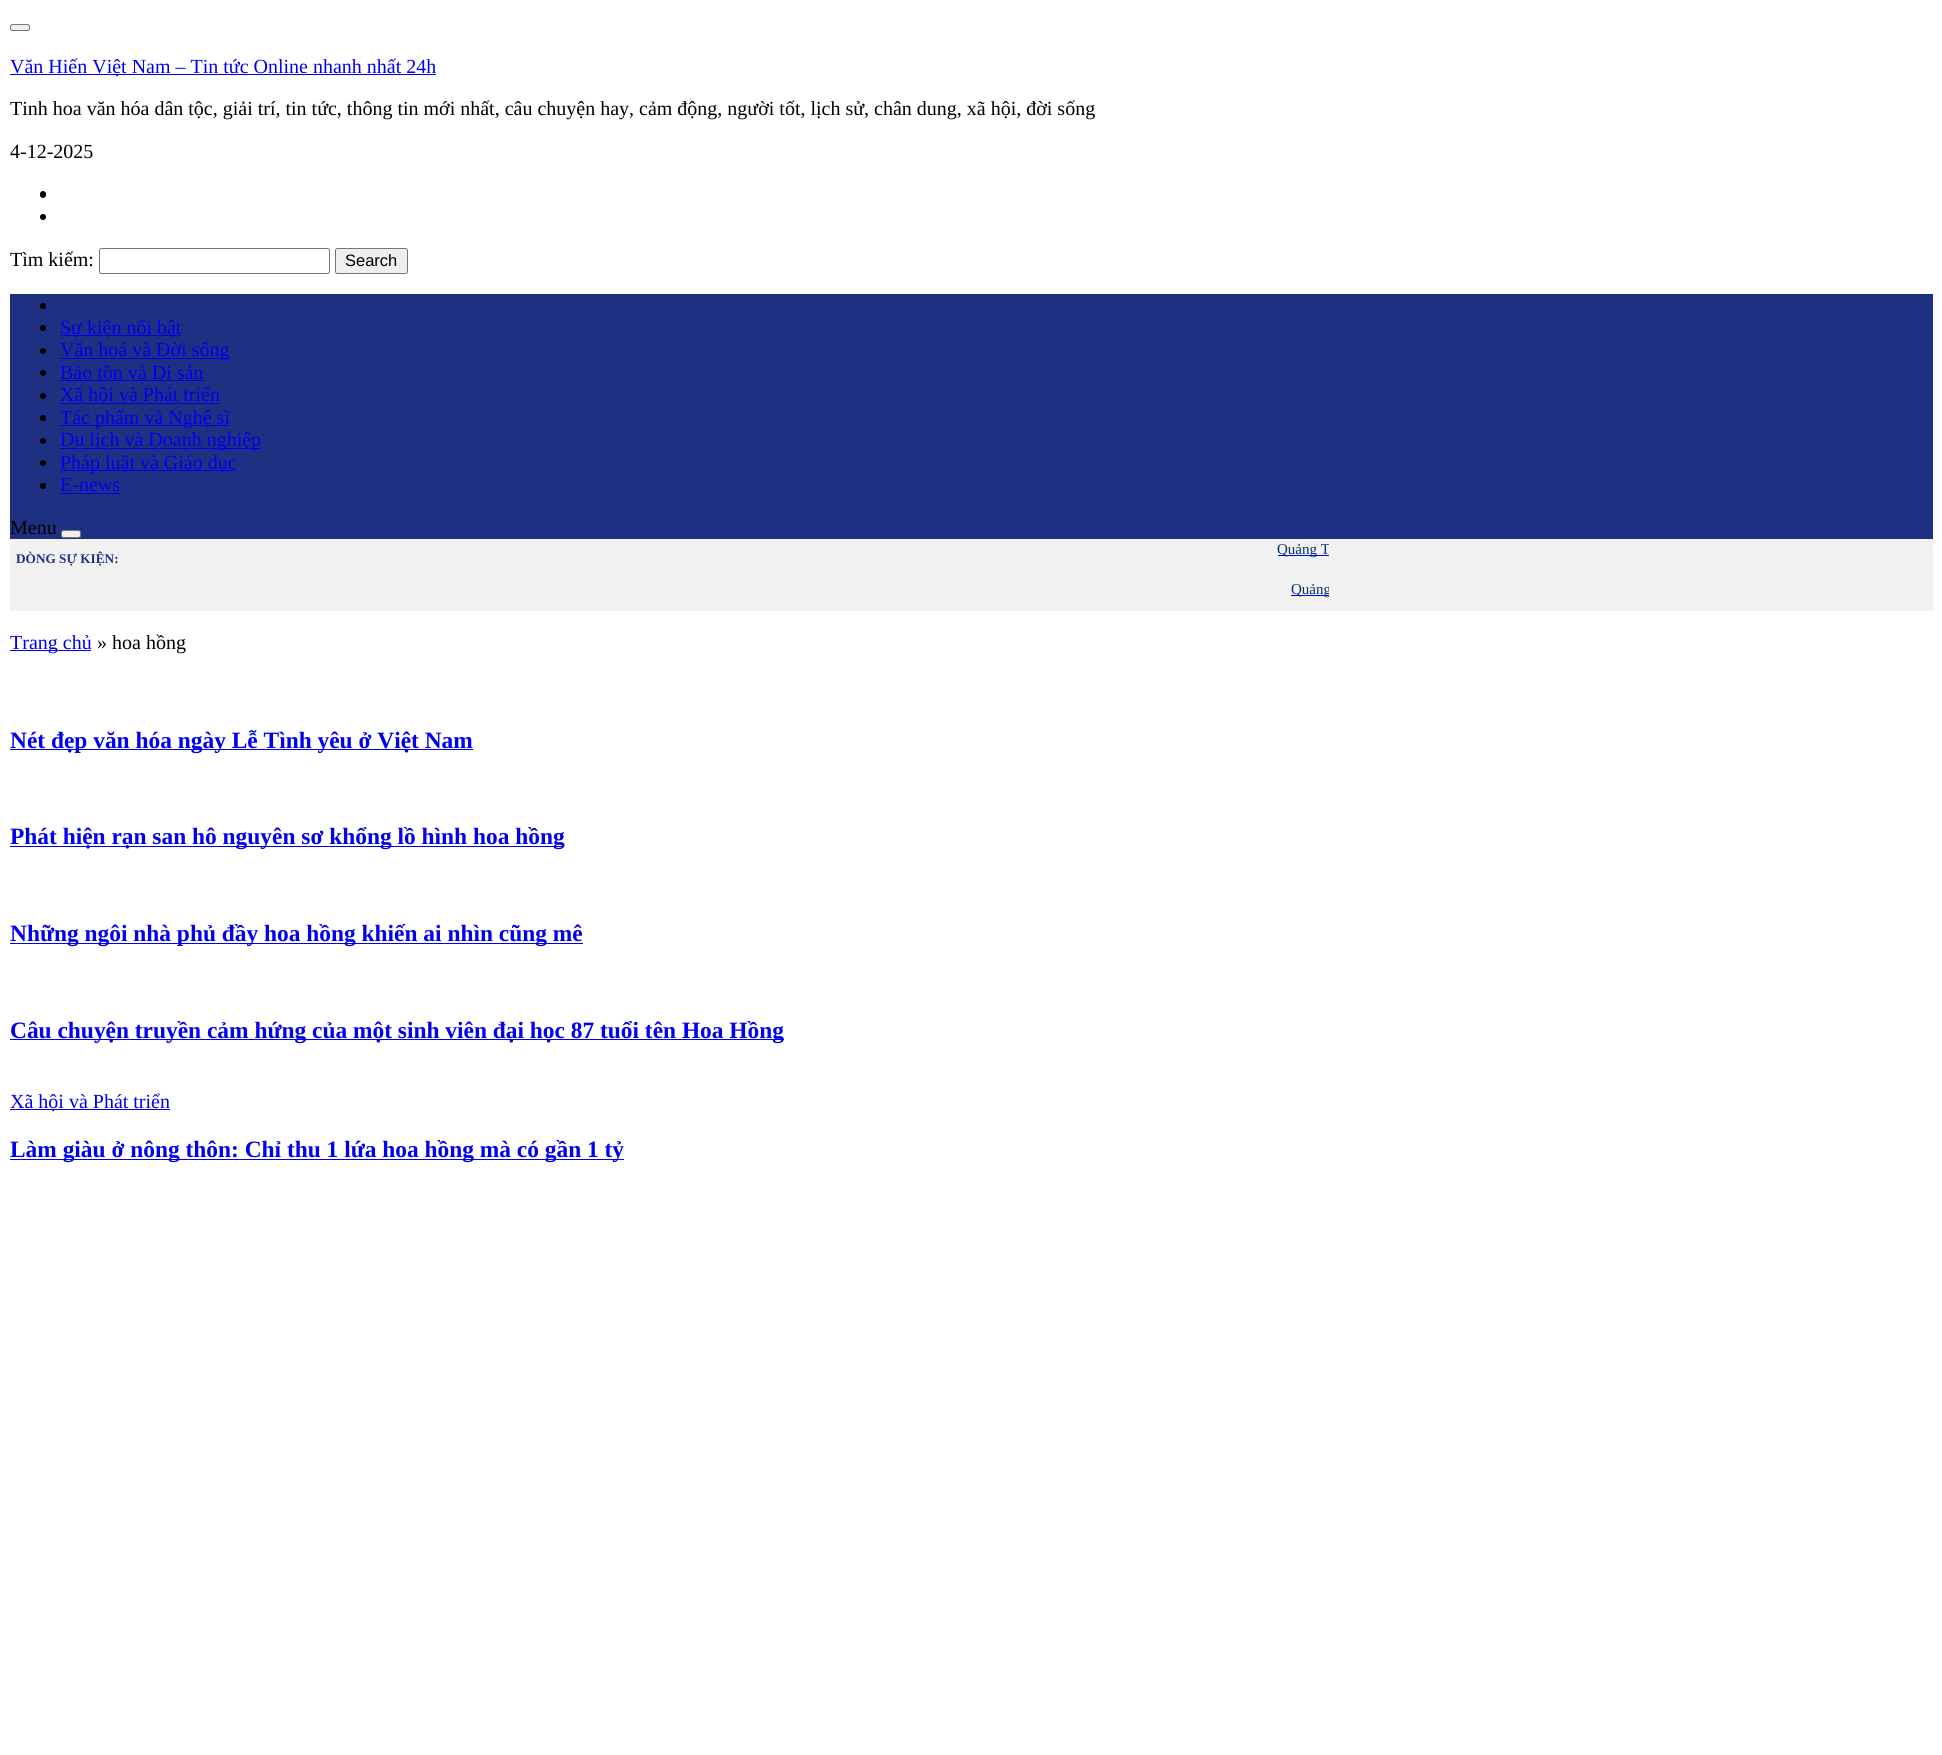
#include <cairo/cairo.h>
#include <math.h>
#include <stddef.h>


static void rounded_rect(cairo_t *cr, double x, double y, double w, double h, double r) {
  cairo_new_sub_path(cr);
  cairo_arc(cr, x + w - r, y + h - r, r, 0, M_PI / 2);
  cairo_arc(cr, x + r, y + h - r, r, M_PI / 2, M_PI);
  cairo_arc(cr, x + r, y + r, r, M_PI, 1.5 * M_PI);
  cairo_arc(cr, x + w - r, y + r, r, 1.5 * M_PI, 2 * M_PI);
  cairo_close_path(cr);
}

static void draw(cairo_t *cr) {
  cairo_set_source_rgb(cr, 1, 1, 1);
  cairo_paint(cr);
  cairo_set_source_rgb(cr, 239 / 255.0, 239 / 255.0, 239 / 255.0);
  rounded_rect(cr, 10.5, 24.5, 19, 6, 2);
  cairo_fill_preserve(cr);
  cairo_set_source_rgb(cr, 118 / 255.0, 118 / 255.0, 118 / 255.0);
  cairo_set_line_width(cr, 1);
  cairo_stroke(cr);
  cairo_set_source_rgb(cr, 0, 0, 238 / 255.0);
  cairo_rectangle(cr, 10, 74, 426, 1);
  cairo_fill(cr);
  cairo_set_source_rgb(cr, 0, 0, 0);
  rounded_rect(cr, 40, 191, 6, 7, 3);
  cairo_fill(cr);
  cairo_arc(cr, 43, 217, 3, 0, 2 * M_PI);
  cairo_fill(cr);
  rounded_rect(cr, 99.5, 248.5, 230, 25, 2);
  cairo_set_source_rgb(cr, 118 / 255.0, 118 / 255.0, 118 / 255.0);
  cairo_stroke(cr);
  cairo_set_source_rgb(cr, 239 / 255.0, 239 / 255.0, 239 / 255.0);
  rounded_rect(cr, 335.5, 248.5, 72, 25, 2);
  cairo_fill_preserve(cr);
  cairo_set_source_rgb(cr, 118 / 255.0, 118 / 255.0, 118 / 255.0);
  cairo_stroke(cr);
  cairo_set_source_rgb(cr, 30 / 255.0, 48 / 255.0, 130 / 255.0);
  cairo_rectangle(cr, 10, 294, 1923, 245);
  cairo_fill(cr);
  cairo_set_source_rgb(cr, 0, 0, 0);
  cairo_arc(cr, 43, 306, 3, 0, 2 * M_PI);
  cairo_fill(cr);
  cairo_arc(cr, 43, 328, 3, 0, 2 * M_PI);
  cairo_fill(cr);
  cairo_set_source_rgb(cr, 0, 0, 238 / 255.0);
  cairo_rectangle(cr, 60, 335, 121, 1);
  cairo_fill(cr);
  cairo_set_source_rgb(cr, 0, 0, 0);
  cairo_arc(cr, 43, 351, 3, 0, 2 * M_PI);
  cairo_fill(cr);
  cairo_set_source_rgb(cr, 0, 0, 238 / 255.0);
  cairo_rectangle(cr, 60, 358, 170, 1);
  cairo_fill(cr);
  cairo_set_source_rgb(cr, 0, 0, 0);
  cairo_arc(cr, 43, 373, 3, 0, 2 * M_PI);
  cairo_fill(cr);
  cairo_set_source_rgb(cr, 0, 0, 238 / 255.0);
  cairo_rectangle(cr, 60, 380, 144, 1);
  cairo_fill(cr);
  cairo_set_source_rgb(cr, 0, 0, 0);
  cairo_arc(cr, 43, 396, 3, 0, 2 * M_PI);
  cairo_fill(cr);
  cairo_set_source_rgb(cr, 0, 0, 238 / 255.0);
  cairo_rectangle(cr, 60, 403, 160, 1);
  cairo_fill(cr);
  cairo_set_source_rgb(cr, 0, 0, 0);
  cairo_arc(cr, 43, 418, 3, 0, 2 * M_PI);
  cairo_fill(cr);
  cairo_set_source_rgb(cr, 0, 0, 238 / 255.0);
  cairo_rectangle(cr, 60, 425, 170, 1);
  cairo_fill(cr);
  cairo_set_source_rgb(cr, 0, 0, 0);
  cairo_arc(cr, 43, 441, 3, 0, 2 * M_PI);
  cairo_fill(cr);
  cairo_set_source_rgb(cr, 0, 0, 238 / 255.0);
  cairo_rectangle(cr, 60, 448, 201, 1);
  cairo_fill(cr);
  cairo_set_source_rgb(cr, 0, 0, 0);
  cairo_arc(cr, 43, 463, 3, 0, 2 * M_PI);
  cairo_fill(cr);
  cairo_set_source_rgb(cr, 0, 0, 238 / 255.0);
  cairo_rectangle(cr, 60, 470, 176, 1);
  cairo_fill(cr);
  cairo_set_source_rgb(cr, 0, 0, 0);
  cairo_arc(cr, 43, 486, 3, 0, 2 * M_PI);
  cairo_fill(cr);
  cairo_set_source_rgb(cr, 0, 0, 238 / 255.0);
  cairo_rectangle(cr, 60, 493, 60, 1);
  cairo_fill(cr);
  cairo_set_source_rgb(cr, 239 / 255.0, 239 / 255.0, 239 / 255.0);
  rounded_rect(cr, 61.5, 530.5, 19, 7, 2);
  cairo_fill_preserve(cr);
  cairo_set_source_rgb(cr, 118 / 255.0, 118 / 255.0, 118 / 255.0);
  cairo_stroke(cr);
  cairo_set_source_rgb(cr, 241 / 255.0, 241 / 255.0, 241 / 255.0);
  cairo_rectangle(cr, 10, 539, 1923, 72);
  cairo_fill(cr);
  cairo_set_source_rgb(cr, 0, 0, 238 / 255.0);
  cairo_rectangle(cr, 1278, 555, 51, 1);
  cairo_fill(cr);
  cairo_rectangle(cr, 1291, 595, 38, 1);
  cairo_fill(cr);
  cairo_rectangle(cr, 10, 650, 81, 1);
  cairo_fill(cr);
  cairo_rectangle(cr, 10, 749, 463, 1);
  cairo_fill(cr);
  cairo_rectangle(cr, 10, 846, 554, 1);
  cairo_fill(cr);
  cairo_rectangle(cr, 10, 943, 573, 1);
  cairo_fill(cr);
  cairo_rectangle(cr, 10, 1039, 774, 1);
  cairo_fill(cr);
  cairo_rectangle(cr, 10, 1109, 160, 1);
  cairo_fill(cr);
  cairo_rectangle(cr, 10, 1159, 614, 1);
  cairo_fill(cr);
  cairo_select_font_face(cr, "Liberation Serif", CAIRO_FONT_SLANT_NORMAL, CAIRO_FONT_WEIGHT_NORMAL);
  cairo_set_font_size(cr, 20);
  cairo_move_to(cr, 10, 73);
  cairo_show_text(cr, "Văn Hiến Việt Nam – Tin tức Online nhanh nhất 24h");
  cairo_set_source_rgb(cr, 0, 0, 0);
  cairo_move_to(cr, 10, 115);
  cairo_show_text(cr, "Tinh hoa văn hóa dân tộc, giải trí, tin tức, thông tin mới nhất, câu chuyện hay, cảm động, người tốt, lịch sử, chân dung, xã hội, đời sống");
  cairo_move_to(cr, 10, 158);
  cairo_show_text(cr, "4-12-2025");
  cairo_move_to(cr, 10, 266);
  cairo_show_text(cr, "Tìm kiếm:");
  cairo_select_font_face(cr, "Liberation Sans", CAIRO_FONT_SLANT_NORMAL, CAIRO_FONT_WEIGHT_NORMAL);
  cairo_set_font_size(cr, 16.5);
  cairo_move_to(cr, 345, 266);
  cairo_show_text(cr, "Search");
  cairo_select_font_face(cr, "Liberation Serif", CAIRO_FONT_SLANT_NORMAL, CAIRO_FONT_WEIGHT_NORMAL);
  cairo_set_font_size(cr, 20);
  cairo_set_source_rgb(cr, 0, 0, 238 / 255.0);
  cairo_move_to(cr, 60, 334);
  cairo_show_text(cr, "Sự kiện nổi bật");
  cairo_move_to(cr, 60, 356);
  cairo_show_text(cr, "Văn hoá và Đời sống");
  cairo_move_to(cr, 60, 379);
  cairo_show_text(cr, "Bảo tồn và Di sản");
  cairo_move_to(cr, 60, 401);
  cairo_show_text(cr, "Xã hội và Phát triển");
  cairo_move_to(cr, 60, 424);
  cairo_show_text(cr, "Tác phẩm và Nghệ sĩ");
  cairo_move_to(cr, 60, 446);
  cairo_show_text(cr, "Du lịch và Doanh nghiệp");
  cairo_move_to(cr, 60, 469);
  cairo_show_text(cr, "Pháp luật và Giáo dục");
  cairo_move_to(cr, 60, 491);
  cairo_show_text(cr, "E-news");
  cairo_set_source_rgb(cr, 0, 0, 0);
  cairo_move_to(cr, 10, 534);
  cairo_show_text(cr, "Menu");
  cairo_select_font_face(cr, "Liberation Serif", CAIRO_FONT_SLANT_NORMAL, CAIRO_FONT_WEIGHT_BOLD);
  cairo_set_font_size(cr, 13.25);
  cairo_set_source_rgb(cr, 30 / 255.0, 48 / 255.0, 130 / 255.0);
  cairo_move_to(cr, 16, 563);
  cairo_show_text(cr, "DÒNG SỰ KIỆN:");
  cairo_save(cr);
  cairo_rectangle(cr, 129, 536, 1200, 23);
  cairo_clip(cr);
  cairo_select_font_face(cr, "Liberation Serif", CAIRO_FONT_SLANT_NORMAL, CAIRO_FONT_WEIGHT_NORMAL);
  cairo_set_font_size(cr, 15);
  cairo_set_source_rgb(cr, 0, 51 / 255.0, 102 / 255.0);
  cairo_move_to(cr, 1277, 554);
  cairo_show_text(cr, "Quảng T");
  cairo_restore(cr);
  cairo_save(cr);
  cairo_rectangle(cr, 16, 576, 1313, 23);
  cairo_clip(cr);
  cairo_select_font_face(cr, "Liberation Serif", CAIRO_FONT_SLANT_NORMAL, CAIRO_FONT_WEIGHT_NORMAL);
  cairo_set_font_size(cr, 15);
  cairo_set_source_rgb(cr, 0, 51 / 255.0, 102 / 255.0);
  cairo_move_to(cr, 1291, 594);
  cairo_show_text(cr, "Quảng");
  cairo_restore(cr);
  cairo_select_font_face(cr, "Liberation Serif", CAIRO_FONT_SLANT_NORMAL, CAIRO_FONT_WEIGHT_NORMAL);
  cairo_set_font_size(cr, 20);
  cairo_set_source_rgb(cr, 0, 0, 238 / 255.0);
  cairo_move_to(cr, 10, 649);
  cairo_show_text(cr, "Trang chủ");
  cairo_set_source_rgb(cr, 0, 0, 0);
  cairo_move_to(cr, 97, 649);
  cairo_show_text(cr, "» hoa hồng");
  cairo_select_font_face(cr, "Liberation Serif", CAIRO_FONT_SLANT_NORMAL, CAIRO_FONT_WEIGHT_BOLD);
  cairo_set_font_size(cr, 23.4);
  cairo_set_source_rgb(cr, 0, 0, 238 / 255.0);
  cairo_move_to(cr, 10, 748);
  cairo_show_text(cr, "Nét đẹp văn hóa ngày Lễ Tình yêu ở Việt Nam");
  cairo_move_to(cr, 10, 844);
  cairo_show_text(cr, "Phát hiện rạn san hô nguyên sơ khổng lồ hình hoa hồng");
  cairo_move_to(cr, 10, 941);
  cairo_show_text(cr, "Những ngôi nhà phủ đầy hoa hồng khiến ai nhìn cũng mê");
  cairo_move_to(cr, 10, 1038);
  cairo_show_text(cr, "Câu chuyện truyền cảm hứng của một sinh viên đại học 87 tuổi tên Hoa Hồng");
  cairo_select_font_face(cr, "Liberation Serif", CAIRO_FONT_SLANT_NORMAL, CAIRO_FONT_WEIGHT_NORMAL);
  cairo_set_font_size(cr, 20);
  cairo_move_to(cr, 10, 1108);
  cairo_show_text(cr, "Xã hội và Phát triển");
  cairo_select_font_face(cr, "Liberation Serif", CAIRO_FONT_SLANT_NORMAL, CAIRO_FONT_WEIGHT_BOLD);
  cairo_set_font_size(cr, 23.4);
  cairo_move_to(cr, 10, 1157);
  cairo_show_text(cr, "Làm giàu ở nông thôn: Chỉ thu 1 lứa hoa hồng mà có gần 1 tỷ");
}

int main(void) {
  cairo_surface_t *surface = cairo_image_surface_create(CAIRO_FORMAT_RGB24, 1942, 1755);
  cairo_t *cr = cairo_create(surface);
  cairo_font_options_t *options = cairo_font_options_create();
  cairo_font_options_set_hint_metrics(options, CAIRO_HINT_METRICS_OFF);
  cairo_font_options_set_hint_style(options, CAIRO_HINT_STYLE_NONE);
  cairo_set_font_options(cr, options);
  cairo_set_miter_limit(cr, 4);
  draw(cr);
  cairo_surface_write_to_png(surface, "out.png");
  cairo_font_options_destroy(options);
  cairo_destroy(cr);
  cairo_surface_destroy(surface);
  return 0;
}
